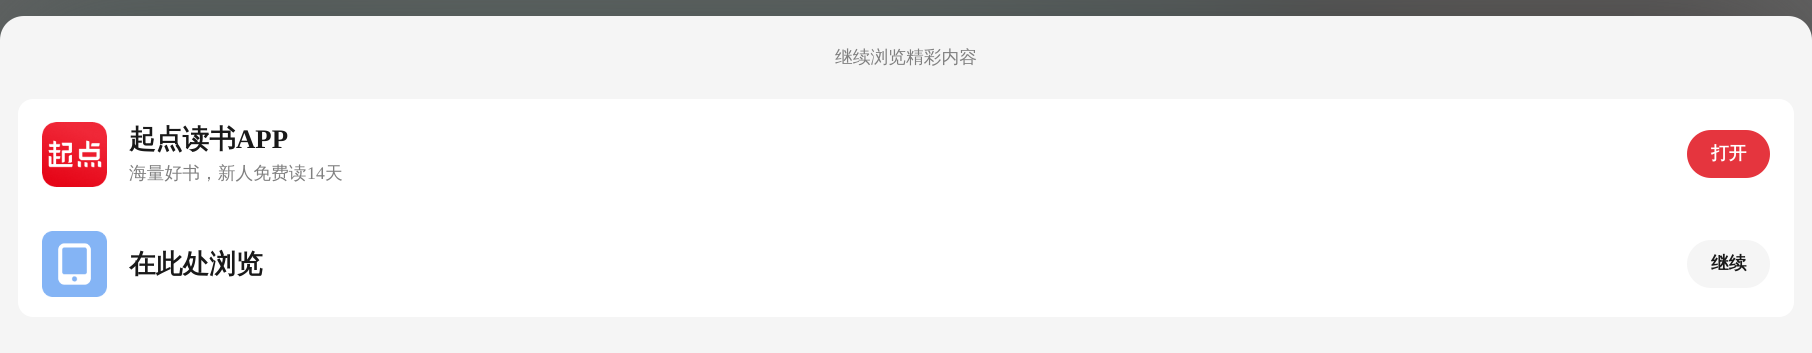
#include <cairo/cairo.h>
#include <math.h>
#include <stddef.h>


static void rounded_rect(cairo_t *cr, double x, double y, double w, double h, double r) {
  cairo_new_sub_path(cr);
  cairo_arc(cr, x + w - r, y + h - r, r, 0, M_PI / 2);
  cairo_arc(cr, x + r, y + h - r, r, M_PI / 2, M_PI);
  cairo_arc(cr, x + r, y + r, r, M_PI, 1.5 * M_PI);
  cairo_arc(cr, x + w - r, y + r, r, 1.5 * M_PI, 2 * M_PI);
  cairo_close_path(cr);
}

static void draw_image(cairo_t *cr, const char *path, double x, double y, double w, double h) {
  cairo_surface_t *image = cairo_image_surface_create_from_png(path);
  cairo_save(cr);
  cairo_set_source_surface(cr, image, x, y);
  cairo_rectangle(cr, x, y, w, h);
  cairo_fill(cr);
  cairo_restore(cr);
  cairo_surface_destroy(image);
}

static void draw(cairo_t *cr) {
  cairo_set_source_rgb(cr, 98 / 255.0, 98 / 255.0, 98 / 255.0);
  cairo_paint(cr);
  draw_image(cr, "images/1.png", 0, 0, 1812, 40);
  cairo_set_source_rgb(cr, 245 / 255.0, 245 / 255.0, 245 / 255.0);
  cairo_new_path(cr);
  cairo_move_to(cr, 24, 16);
  cairo_line_to(cr, 1788, 16);
  cairo_curve_to(cr, 1801.5, 16, 1812, 26.5, 1812, 40);
  cairo_line_to(cr, 1812, 353);
  cairo_line_to(cr, 0, 353);
  cairo_line_to(cr, 0, 40);
  cairo_curve_to(cr, 0, 26.5, 10.5, 16, 24, 16);
  cairo_close_path(cr);
  cairo_fill(cr);
  cairo_set_source_rgb(cr, 1, 1, 1);
  rounded_rect(cr, 18, 99, 1776, 218, 15);
  cairo_fill(cr);
  draw_image(cr, "images/2.png", 42, 122, 65, 65);
  cairo_set_source_rgb(cr, 229 / 255.0, 53 / 255.0, 62 / 255.0);
  rounded_rect(cr, 1687, 130, 83, 48, 24);
  cairo_fill(cr);
  draw_image(cr, "images/3.png", 42, 231, 65, 66);
  cairo_set_source_rgb(cr, 245 / 255.0, 245 / 255.0, 245 / 255.0);
  rounded_rect(cr, 1687, 240, 83, 48, 24);
  cairo_fill(cr);
  cairo_select_font_face(cr, "WenQuanYi Zen Hei Medium", CAIRO_FONT_SLANT_NORMAL, CAIRO_FONT_WEIGHT_NORMAL);
  cairo_set_font_size(cr, 17.75);
  cairo_set_source_rgb(cr, 128 / 255.0, 128 / 255.0, 128 / 255.0);
  cairo_move_to(cr, 835, 63);
  cairo_show_text(cr, "继续浏览精彩内容");
  cairo_select_font_face(cr, "WenQuanYi Zen Hei", CAIRO_FONT_SLANT_NORMAL, CAIRO_FONT_WEIGHT_BOLD);
  cairo_set_font_size(cr, 26.75);
  cairo_set_source_rgb(cr, 25 / 255.0, 25 / 255.0, 25 / 255.0);
  cairo_move_to(cr, 129, 148);
  cairo_show_text(cr, "起点读书");
  cairo_select_font_face(cr, "Liberation Serif", CAIRO_FONT_SLANT_NORMAL, CAIRO_FONT_WEIGHT_BOLD);
  cairo_move_to(cr, 236, 148);
  cairo_show_text(cr, "APP");
  cairo_select_font_face(cr, "WenQuanYi Zen Hei Medium", CAIRO_FONT_SLANT_NORMAL, CAIRO_FONT_WEIGHT_NORMAL);
  cairo_set_font_size(cr, 17.75);
  cairo_set_source_rgb(cr, 128 / 255.0, 128 / 255.0, 128 / 255.0);
  cairo_move_to(cr, 129, 179);
  cairo_show_text(cr, "海量好书，新人免费读");
  cairo_select_font_face(cr, "Liberation Serif", CAIRO_FONT_SLANT_NORMAL, CAIRO_FONT_WEIGHT_NORMAL);
  cairo_move_to(cr, 307, 179);
  cairo_show_text(cr, "14");
  cairo_select_font_face(cr, "WenQuanYi Zen Hei Medium", CAIRO_FONT_SLANT_NORMAL, CAIRO_FONT_WEIGHT_NORMAL);
  cairo_move_to(cr, 325, 179);
  cairo_show_text(cr, "天");
  cairo_select_font_face(cr, "WenQuanYi Zen Hei", CAIRO_FONT_SLANT_NORMAL, CAIRO_FONT_WEIGHT_BOLD);
  cairo_set_source_rgb(cr, 1, 1, 1);
  cairo_move_to(cr, 1711, 159);
  cairo_show_text(cr, "打开");
  cairo_set_font_size(cr, 26.75);
  cairo_set_source_rgb(cr, 25 / 255.0, 25 / 255.0, 25 / 255.0);
  cairo_move_to(cr, 129, 273);
  cairo_show_text(cr, "在此处浏览");
  cairo_set_font_size(cr, 17.75);
  cairo_move_to(cr, 1711, 269);
  cairo_show_text(cr, "继续");
}

int main(void) {
  cairo_surface_t *surface = cairo_image_surface_create(CAIRO_FORMAT_RGB24, 1812, 353);
  cairo_t *cr = cairo_create(surface);
  cairo_font_options_t *options = cairo_font_options_create();
  cairo_font_options_set_hint_metrics(options, CAIRO_HINT_METRICS_OFF);
  cairo_font_options_set_hint_style(options, CAIRO_HINT_STYLE_NONE);
  cairo_set_font_options(cr, options);
  cairo_set_miter_limit(cr, 4);
  draw(cr);
  cairo_surface_write_to_png(surface, "out.png");
  cairo_font_options_destroy(options);
  cairo_destroy(cr);
  cairo_surface_destroy(surface);
  return 0;
}
